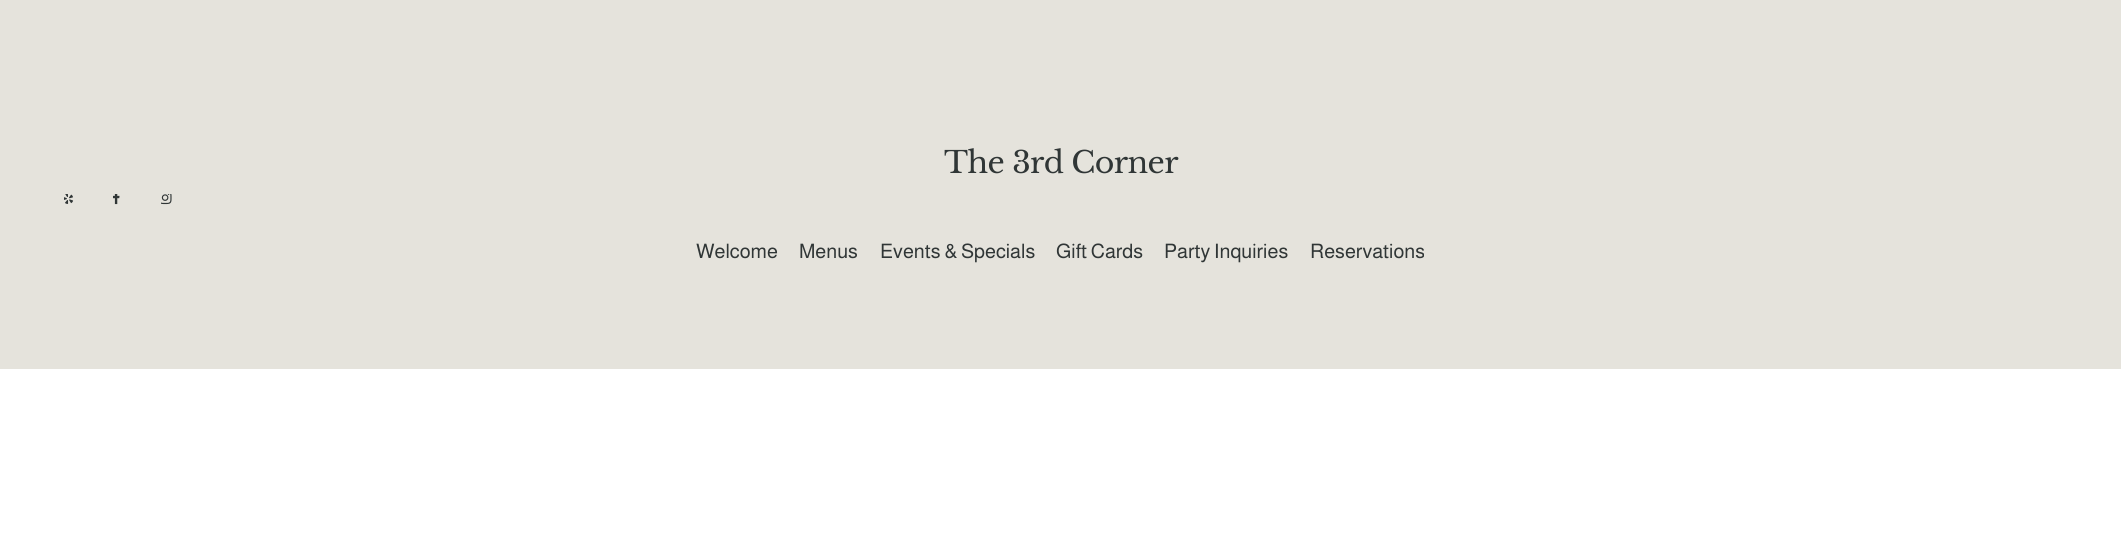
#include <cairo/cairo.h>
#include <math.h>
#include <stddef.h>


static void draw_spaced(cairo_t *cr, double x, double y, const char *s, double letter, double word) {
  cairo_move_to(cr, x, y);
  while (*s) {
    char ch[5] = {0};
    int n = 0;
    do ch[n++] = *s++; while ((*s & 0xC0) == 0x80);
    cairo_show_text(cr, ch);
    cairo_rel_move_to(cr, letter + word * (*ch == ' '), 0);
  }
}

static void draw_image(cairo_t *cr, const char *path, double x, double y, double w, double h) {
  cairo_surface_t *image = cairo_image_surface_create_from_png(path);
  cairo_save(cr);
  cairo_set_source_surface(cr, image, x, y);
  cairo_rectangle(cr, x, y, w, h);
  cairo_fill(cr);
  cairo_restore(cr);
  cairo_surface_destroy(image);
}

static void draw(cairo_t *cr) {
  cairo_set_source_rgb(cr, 1, 1, 1);
  cairo_paint(cr);
  cairo_set_source_rgb(cr, 229 / 255.0, 227 / 255.0, 220 / 255.0);
  cairo_rectangle(cr, 0, 0, 2121, 369);
  cairo_fill(cr);
  draw_image(cr, "images/1.png", 64, 194, 10, 10);
  draw_image(cr, "images/2.png", 113, 194, 7, 11);
  draw_image(cr, "images/3.png", 161, 194, 11, 11);
  cairo_select_font_face(cr, "Libre Baskerville", CAIRO_FONT_SLANT_NORMAL, CAIRO_FONT_WEIGHT_NORMAL);
  cairo_set_font_size(cr, 30);
  cairo_set_source_rgb(cr, 48 / 255.0, 54 / 255.0, 54 / 255.0);
  draw_spaced(cr, 944, 173, "The 3rd Corner", -0.6, 0);
  cairo_select_font_face(cr, "Almarai", CAIRO_FONT_SLANT_NORMAL, CAIRO_FONT_WEIGHT_NORMAL);
  cairo_set_font_size(cr, 20);
  cairo_move_to(cr, 696, 258);
  cairo_show_text(cr, "Welcome");
  cairo_move_to(cr, 799, 258);
  cairo_show_text(cr, "Menus");
  cairo_move_to(cr, 880, 258);
  cairo_show_text(cr, "Events & Specials");
  cairo_move_to(cr, 1056, 258);
  cairo_show_text(cr, "Gift Cards");
  cairo_move_to(cr, 1164, 258);
  cairo_show_text(cr, "Party Inquiries");
  cairo_move_to(cr, 1310, 258);
  cairo_show_text(cr, "Reservations");
}

int main(void) {
  cairo_surface_t *surface = cairo_image_surface_create(CAIRO_FORMAT_RGB24, 2121, 542);
  cairo_t *cr = cairo_create(surface);
  cairo_font_options_t *options = cairo_font_options_create();
  cairo_font_options_set_hint_metrics(options, CAIRO_HINT_METRICS_OFF);
  cairo_font_options_set_hint_style(options, CAIRO_HINT_STYLE_NONE);
  cairo_set_font_options(cr, options);
  cairo_set_miter_limit(cr, 4);
  draw(cr);
  cairo_surface_write_to_png(surface, "out.png");
  cairo_font_options_destroy(options);
  cairo_destroy(cr);
  cairo_surface_destroy(surface);
  return 0;
}
